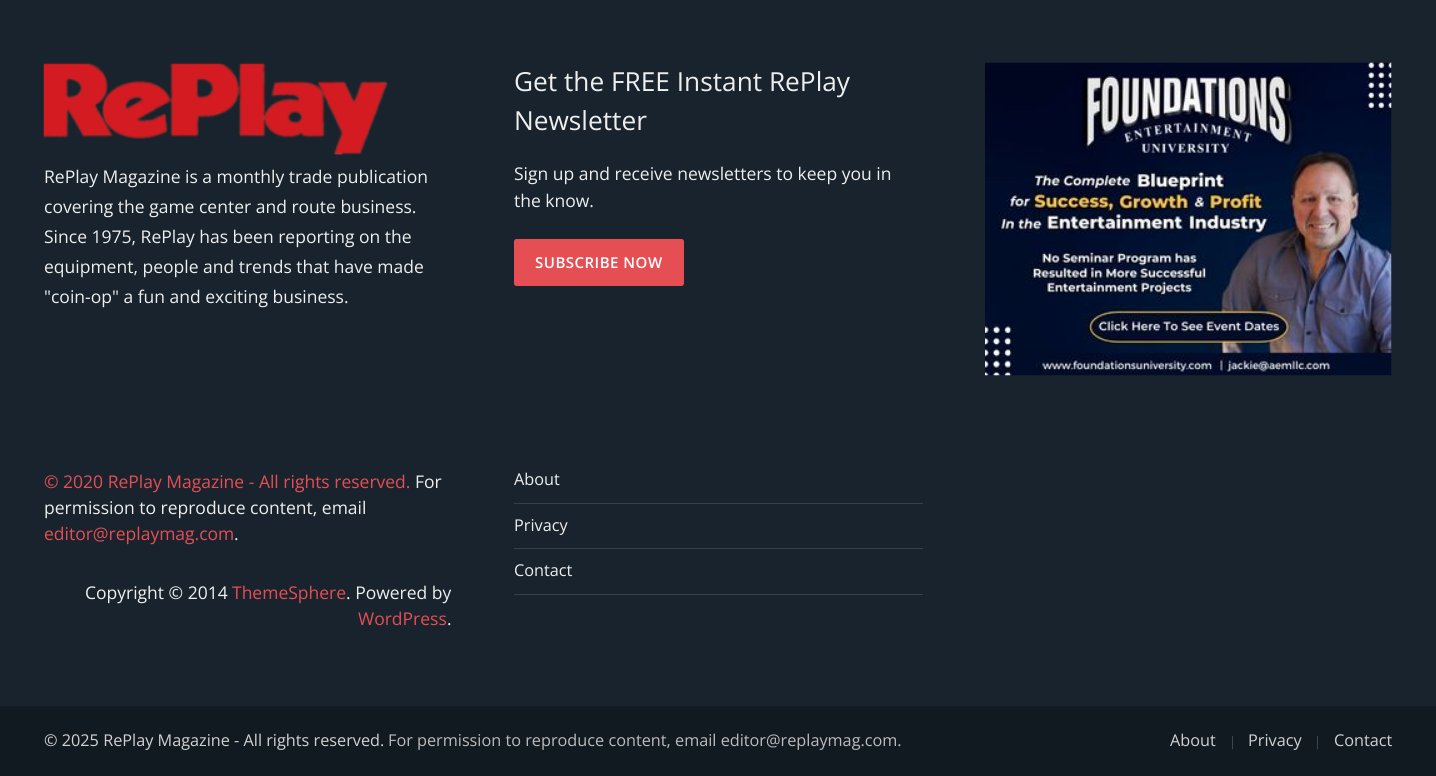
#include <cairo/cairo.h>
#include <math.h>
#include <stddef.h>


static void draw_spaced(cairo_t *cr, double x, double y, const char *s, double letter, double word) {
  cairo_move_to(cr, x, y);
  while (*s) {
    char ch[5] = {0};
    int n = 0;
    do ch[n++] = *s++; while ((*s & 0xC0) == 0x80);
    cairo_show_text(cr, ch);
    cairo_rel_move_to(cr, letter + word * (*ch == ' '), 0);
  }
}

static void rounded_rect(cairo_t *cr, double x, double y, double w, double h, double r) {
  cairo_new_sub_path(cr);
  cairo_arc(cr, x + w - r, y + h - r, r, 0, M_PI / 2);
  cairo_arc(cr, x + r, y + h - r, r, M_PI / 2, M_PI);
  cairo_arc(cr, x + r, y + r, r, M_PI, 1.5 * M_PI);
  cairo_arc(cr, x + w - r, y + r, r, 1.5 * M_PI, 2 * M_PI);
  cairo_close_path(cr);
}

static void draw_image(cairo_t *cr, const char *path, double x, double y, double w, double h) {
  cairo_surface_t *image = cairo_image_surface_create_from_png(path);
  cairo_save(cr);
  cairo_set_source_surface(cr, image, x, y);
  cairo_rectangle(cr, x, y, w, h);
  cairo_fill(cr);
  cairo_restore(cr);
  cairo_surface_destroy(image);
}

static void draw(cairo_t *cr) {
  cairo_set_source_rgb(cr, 25 / 255.0, 35 / 255.0, 45 / 255.0);
  cairo_paint(cr);
  draw_image(cr, "images/1.png", 43, 62, 345, 94);
  cairo_set_source_rgb(cr, 229 / 255.0, 78 / 255.0, 83 / 255.0);
  rounded_rect(cr, 514, 239, 170, 47, 2.5);
  cairo_fill(cr);
  draw_image(cr, "images/2.png", 985, 62, 407, 314);
  cairo_set_source_rgb(cr, 55 / 255.0, 64 / 255.0, 72 / 255.0);
  cairo_rectangle(cr, 514, 503, 409, 1);
  cairo_fill(cr);
  cairo_rectangle(cr, 514, 548, 409, 1);
  cairo_fill(cr);
  cairo_rectangle(cr, 514, 594, 409, 1);
  cairo_fill(cr);
  cairo_set_source_rgb(cr, 18 / 255.0, 26 / 255.0, 33 / 255.0);
  cairo_rectangle(cr, 0, 706, 1436, 70);
  cairo_fill(cr);
  cairo_select_font_face(cr, "Open Sans", CAIRO_FONT_SLANT_NORMAL, CAIRO_FONT_WEIGHT_NORMAL);
  cairo_set_font_size(cr, 17.5);
  cairo_set_source_rgb(cr, 238 / 255.0, 238 / 255.0, 238 / 255.0);
  cairo_move_to(cr, 44, 183);
  cairo_show_text(cr, "RePlay Magazine is a monthly trade publication");
  cairo_move_to(cr, 44, 213);
  cairo_show_text(cr, "covering the game center and route business.");
  cairo_move_to(cr, 44, 243);
  cairo_show_text(cr, "Since 1975, RePlay has been reporting on the");
  cairo_move_to(cr, 44, 273);
  cairo_show_text(cr, "equipment, people and trends that have made");
  cairo_move_to(cr, 44, 303);
  cairo_show_text(cr, "\"coin-op\" a fun and exciting business.");
  cairo_set_font_size(cr, 26.25);
  cairo_move_to(cr, 514, 91);
  cairo_show_text(cr, "Get the FREE Instant RePlay");
  cairo_move_to(cr, 514, 130);
  cairo_show_text(cr, "Newsletter");
  cairo_set_font_size(cr, 17.5);
  cairo_move_to(cr, 514, 180);
  cairo_show_text(cr, "Sign up and receive newsletters to keep you in");
  cairo_move_to(cr, 514, 207);
  cairo_show_text(cr, "the know.");
  cairo_select_font_face(cr, "Open Sans SemiBold", CAIRO_FONT_SLANT_NORMAL, CAIRO_FONT_WEIGHT_NORMAL);
  cairo_set_font_size(cr, 15);
  cairo_set_source_rgb(cr, 1, 1, 1);
  draw_spaced(cr, 535, 268, "SUBSCRIBE NOW", 0.5, 0);
  cairo_select_font_face(cr, "Open Sans", CAIRO_FONT_SLANT_NORMAL, CAIRO_FONT_WEIGHT_NORMAL);
  cairo_set_font_size(cr, 17.5);
  cairo_set_source_rgb(cr, 229 / 255.0, 78 / 255.0, 83 / 255.0);
  cairo_move_to(cr, 44, 488);
  cairo_show_text(cr, "© 2020 RePlay Magazine - All rights reserved.");
  cairo_set_source_rgb(cr, 238 / 255.0, 238 / 255.0, 238 / 255.0);
  cairo_move_to(cr, 415, 488);
  cairo_show_text(cr, "For");
  cairo_move_to(cr, 44, 514);
  cairo_show_text(cr, "permission to reproduce content, email");
  cairo_set_source_rgb(cr, 229 / 255.0, 78 / 255.0, 83 / 255.0);
  cairo_move_to(cr, 44, 540);
  cairo_show_text(cr, "editor@replaymag.com");
  cairo_set_source_rgb(cr, 238 / 255.0, 238 / 255.0, 238 / 255.0);
  cairo_move_to(cr, 234, 540);
  cairo_show_text(cr, ".");
  cairo_move_to(cr, 85, 599);
  cairo_show_text(cr, "Copyright © 2014");
  cairo_set_source_rgb(cr, 229 / 255.0, 78 / 255.0, 83 / 255.0);
  cairo_move_to(cr, 232, 599);
  cairo_show_text(cr, "ThemeSphere");
  cairo_set_source_rgb(cr, 238 / 255.0, 238 / 255.0, 238 / 255.0);
  cairo_move_to(cr, 346, 599);
  cairo_show_text(cr, ". Powered by");
  cairo_set_source_rgb(cr, 229 / 255.0, 78 / 255.0, 83 / 255.0);
  cairo_move_to(cr, 358, 625);
  cairo_show_text(cr, "WordPress");
  cairo_set_source_rgb(cr, 238 / 255.0, 238 / 255.0, 238 / 255.0);
  cairo_move_to(cr, 447, 625);
  cairo_show_text(cr, ".");
  cairo_set_font_size(cr, 16.25);
  cairo_move_to(cr, 514, 485);
  cairo_show_text(cr, "About");
  cairo_move_to(cr, 514, 531);
  cairo_show_text(cr, "Privacy");
  cairo_move_to(cr, 514, 576);
  cairo_show_text(cr, "Contact");
  cairo_set_source_rgb(cr, 209 / 255.0, 209 / 255.0, 209 / 255.0);
  cairo_move_to(cr, 44, 746);
  cairo_show_text(cr, "© 2025 RePlay Magazine - All rights reserved.");
  cairo_set_source_rgb(cr, 187 / 255.0, 187 / 255.0, 187 / 255.0);
  cairo_move_to(cr, 388, 746);
  cairo_show_text(cr, "For permission to reproduce content, email editor@replaymag.com.");
  cairo_set_source_rgb(cr, 209 / 255.0, 209 / 255.0, 209 / 255.0);
  cairo_move_to(cr, 1170, 746);
  cairo_show_text(cr, "About");
  cairo_set_font_size(cr, 13);
  cairo_set_source_rgb(cr, 69 / 255.0, 74 / 255.0, 79 / 255.0);
  cairo_move_to(cr, 1229, 746);
  cairo_show_text(cr, "|");
  cairo_set_font_size(cr, 16.25);
  cairo_set_source_rgb(cr, 209 / 255.0, 209 / 255.0, 209 / 255.0);
  cairo_move_to(cr, 1248, 746);
  cairo_show_text(cr, "Privacy");
  cairo_set_font_size(cr, 13);
  cairo_set_source_rgb(cr, 69 / 255.0, 74 / 255.0, 79 / 255.0);
  cairo_move_to(cr, 1314, 746);
  cairo_show_text(cr, "|");
  cairo_set_font_size(cr, 16.25);
  cairo_set_source_rgb(cr, 209 / 255.0, 209 / 255.0, 209 / 255.0);
  cairo_move_to(cr, 1334, 746);
  cairo_show_text(cr, "Contact");
}

int main(void) {
  cairo_surface_t *surface = cairo_image_surface_create(CAIRO_FORMAT_RGB24, 1436, 776);
  cairo_t *cr = cairo_create(surface);
  cairo_font_options_t *options = cairo_font_options_create();
  cairo_font_options_set_hint_metrics(options, CAIRO_HINT_METRICS_OFF);
  cairo_font_options_set_hint_style(options, CAIRO_HINT_STYLE_NONE);
  cairo_set_font_options(cr, options);
  cairo_set_miter_limit(cr, 4);
  draw(cr);
  cairo_surface_write_to_png(surface, "out.png");
  cairo_font_options_destroy(options);
  cairo_destroy(cr);
  cairo_surface_destroy(surface);
  return 0;
}
